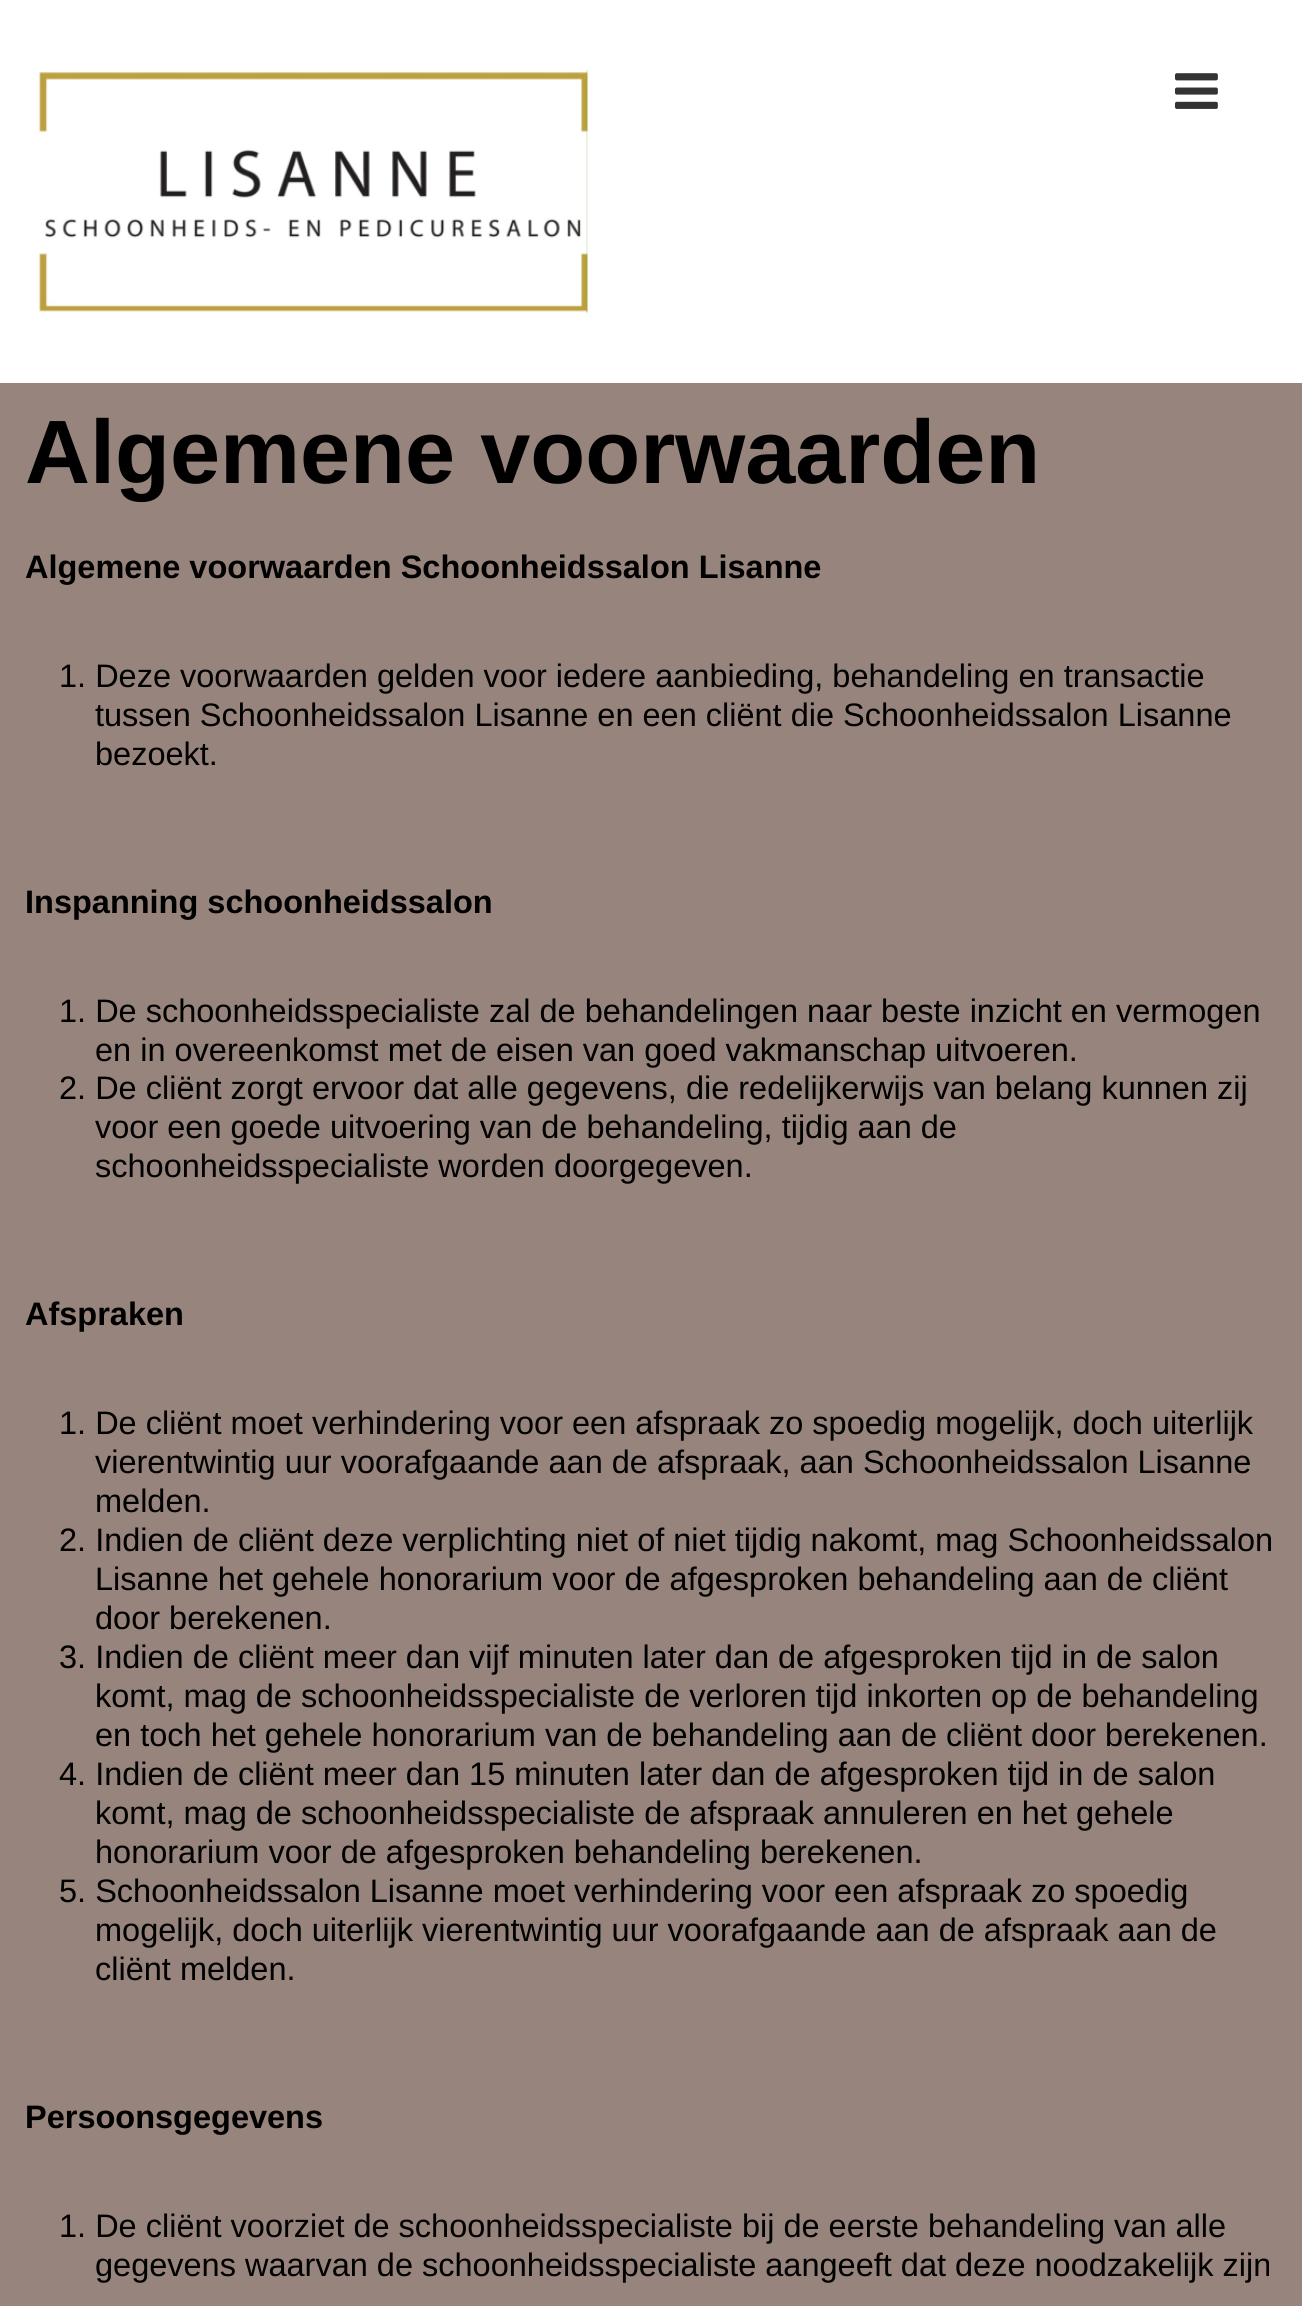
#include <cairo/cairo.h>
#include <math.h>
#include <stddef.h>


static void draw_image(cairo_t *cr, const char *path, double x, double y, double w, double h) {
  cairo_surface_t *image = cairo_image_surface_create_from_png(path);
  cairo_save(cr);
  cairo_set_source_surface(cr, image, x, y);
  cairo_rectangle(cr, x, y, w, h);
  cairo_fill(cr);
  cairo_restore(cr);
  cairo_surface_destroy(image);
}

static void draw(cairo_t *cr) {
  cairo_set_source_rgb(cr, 151 / 255.0, 132 / 255.0, 124 / 255.0);
  cairo_paint(cr);
  cairo_set_source_rgb(cr, 1, 1, 1);
  cairo_rectangle(cr, 0, 0, 1302, 383);
  cairo_fill(cr);
  draw_image(cr, "images/1.png", 38, 70, 550, 243);
  draw_image(cr, "images/2.png", 1175, 73, 43, 36);
  cairo_select_font_face(cr, "Liberation Sans", CAIRO_FONT_SLANT_NORMAL, CAIRO_FONT_WEIGHT_BOLD);
  cairo_set_font_size(cr, 90);
  cairo_set_source_rgb(cr, 0, 0, 0);
  cairo_move_to(cr, 25, 483);
  cairo_show_text(cr, "Algemene voorwaarden");
  cairo_set_font_size(cr, 32.5);
  cairo_move_to(cr, 25, 578);
  cairo_show_text(cr, "Algemene voorwaarden Schoonheidssalon Lisanne");
  cairo_select_font_face(cr, "Liberation Sans", CAIRO_FONT_SLANT_NORMAL, CAIRO_FONT_WEIGHT_NORMAL);
  cairo_move_to(cr, 59, 687);
  cairo_show_text(cr, "1. Deze voorwaarden gelden voor iedere aanbieding, behandeling en transactie");
  cairo_move_to(cr, 95, 726);
  cairo_show_text(cr, "tussen Schoonheidssalon Lisanne en een cliënt die Schoonheidssalon Lisanne");
  cairo_move_to(cr, 95, 765);
  cairo_show_text(cr, "bezoekt.");
  cairo_select_font_face(cr, "Liberation Sans", CAIRO_FONT_SLANT_NORMAL, CAIRO_FONT_WEIGHT_BOLD);
  cairo_move_to(cr, 25, 913);
  cairo_show_text(cr, "Inspanning schoonheidssalon");
  cairo_select_font_face(cr, "Liberation Sans", CAIRO_FONT_SLANT_NORMAL, CAIRO_FONT_WEIGHT_NORMAL);
  cairo_move_to(cr, 59, 1022);
  cairo_show_text(cr, "1. De schoonheidsspecialiste zal de behandelingen naar beste inzicht en vermogen");
  cairo_move_to(cr, 95, 1061);
  cairo_show_text(cr, "en in overeenkomst met de eisen van goed vakmanschap uitvoeren.");
  cairo_move_to(cr, 59, 1099);
  cairo_show_text(cr, "2. De cliënt zorgt ervoor dat alle gegevens, die redelijkerwijs van belang kunnen zij");
  cairo_move_to(cr, 95, 1138);
  cairo_show_text(cr, "voor een goede uitvoering van de behandeling, tijdig aan de");
  cairo_move_to(cr, 95, 1177);
  cairo_show_text(cr, "schoonheidsspecialiste worden doorgegeven.");
  cairo_select_font_face(cr, "Liberation Sans", CAIRO_FONT_SLANT_NORMAL, CAIRO_FONT_WEIGHT_BOLD);
  cairo_move_to(cr, 25, 1325);
  cairo_show_text(cr, "Afspraken");
  cairo_select_font_face(cr, "Liberation Sans", CAIRO_FONT_SLANT_NORMAL, CAIRO_FONT_WEIGHT_NORMAL);
  cairo_move_to(cr, 59, 1434);
  cairo_show_text(cr, "1. De cliënt moet verhindering voor een afspraak zo spoedig mogelijk, doch uiterlijk");
  cairo_move_to(cr, 95, 1473);
  cairo_show_text(cr, "vierentwintig uur voorafgaande aan de afspraak, aan Schoonheidssalon Lisanne");
  cairo_move_to(cr, 95, 1512);
  cairo_show_text(cr, "melden.");
  cairo_move_to(cr, 59, 1551);
  cairo_show_text(cr, "2. Indien de cliënt deze verplichting niet of niet tijdig nakomt, mag Schoonheidssalon");
  cairo_move_to(cr, 95, 1590);
  cairo_show_text(cr, "Lisanne het gehele honorarium voor de afgesproken behandeling aan de cliënt");
  cairo_move_to(cr, 95, 1629);
  cairo_show_text(cr, "door berekenen.");
  cairo_move_to(cr, 59, 1668);
  cairo_show_text(cr, "3. Indien de cliënt meer dan vijf minuten later dan de afgesproken tijd in de salon");
  cairo_move_to(cr, 95, 1707);
  cairo_show_text(cr, "komt, mag de schoonheidsspecialiste de verloren tijd inkorten op de behandeling");
  cairo_move_to(cr, 95, 1746);
  cairo_show_text(cr, "en toch het gehele honorarium van de behandeling aan de cliënt door berekenen.");
  cairo_move_to(cr, 59, 1785);
  cairo_show_text(cr, "4. Indien de cliënt meer dan 15 minuten later dan de afgesproken tijd in de salon");
  cairo_move_to(cr, 95, 1824);
  cairo_show_text(cr, "komt, mag de schoonheidsspecialiste de afspraak annuleren en het gehele");
  cairo_move_to(cr, 95, 1863);
  cairo_show_text(cr, "honorarium voor de afgesproken behandeling berekenen.");
  cairo_move_to(cr, 59, 1902);
  cairo_show_text(cr, "5. Schoonheidssalon Lisanne moet verhindering voor een afspraak zo spoedig");
  cairo_move_to(cr, 95, 1941);
  cairo_show_text(cr, "mogelijk, doch uiterlijk vierentwintig uur voorafgaande aan de afspraak aan de");
  cairo_move_to(cr, 95, 1980);
  cairo_show_text(cr, "cliënt melden.");
  cairo_select_font_face(cr, "Liberation Sans", CAIRO_FONT_SLANT_NORMAL, CAIRO_FONT_WEIGHT_BOLD);
  cairo_move_to(cr, 25, 2128);
  cairo_show_text(cr, "Persoonsgegevens");
  cairo_select_font_face(cr, "Liberation Sans", CAIRO_FONT_SLANT_NORMAL, CAIRO_FONT_WEIGHT_NORMAL);
  cairo_move_to(cr, 59, 2237);
  cairo_show_text(cr, "1. De cliënt voorziet de schoonheidsspecialiste bij de eerste behandeling van alle");
  cairo_move_to(cr, 95, 2276);
  cairo_show_text(cr, "gegevens waarvan de schoonheidsspecialiste aangeeft dat deze noodzakelijk zijn");
}

int main(void) {
  cairo_surface_t *surface = cairo_image_surface_create(CAIRO_FORMAT_RGB24, 1302, 2306);
  cairo_t *cr = cairo_create(surface);
  cairo_font_options_t *options = cairo_font_options_create();
  cairo_font_options_set_hint_metrics(options, CAIRO_HINT_METRICS_OFF);
  cairo_font_options_set_hint_style(options, CAIRO_HINT_STYLE_NONE);
  cairo_set_font_options(cr, options);
  cairo_set_miter_limit(cr, 4);
  draw(cr);
  cairo_surface_write_to_png(surface, "out.png");
  cairo_font_options_destroy(options);
  cairo_destroy(cr);
  cairo_surface_destroy(surface);
  return 0;
}
